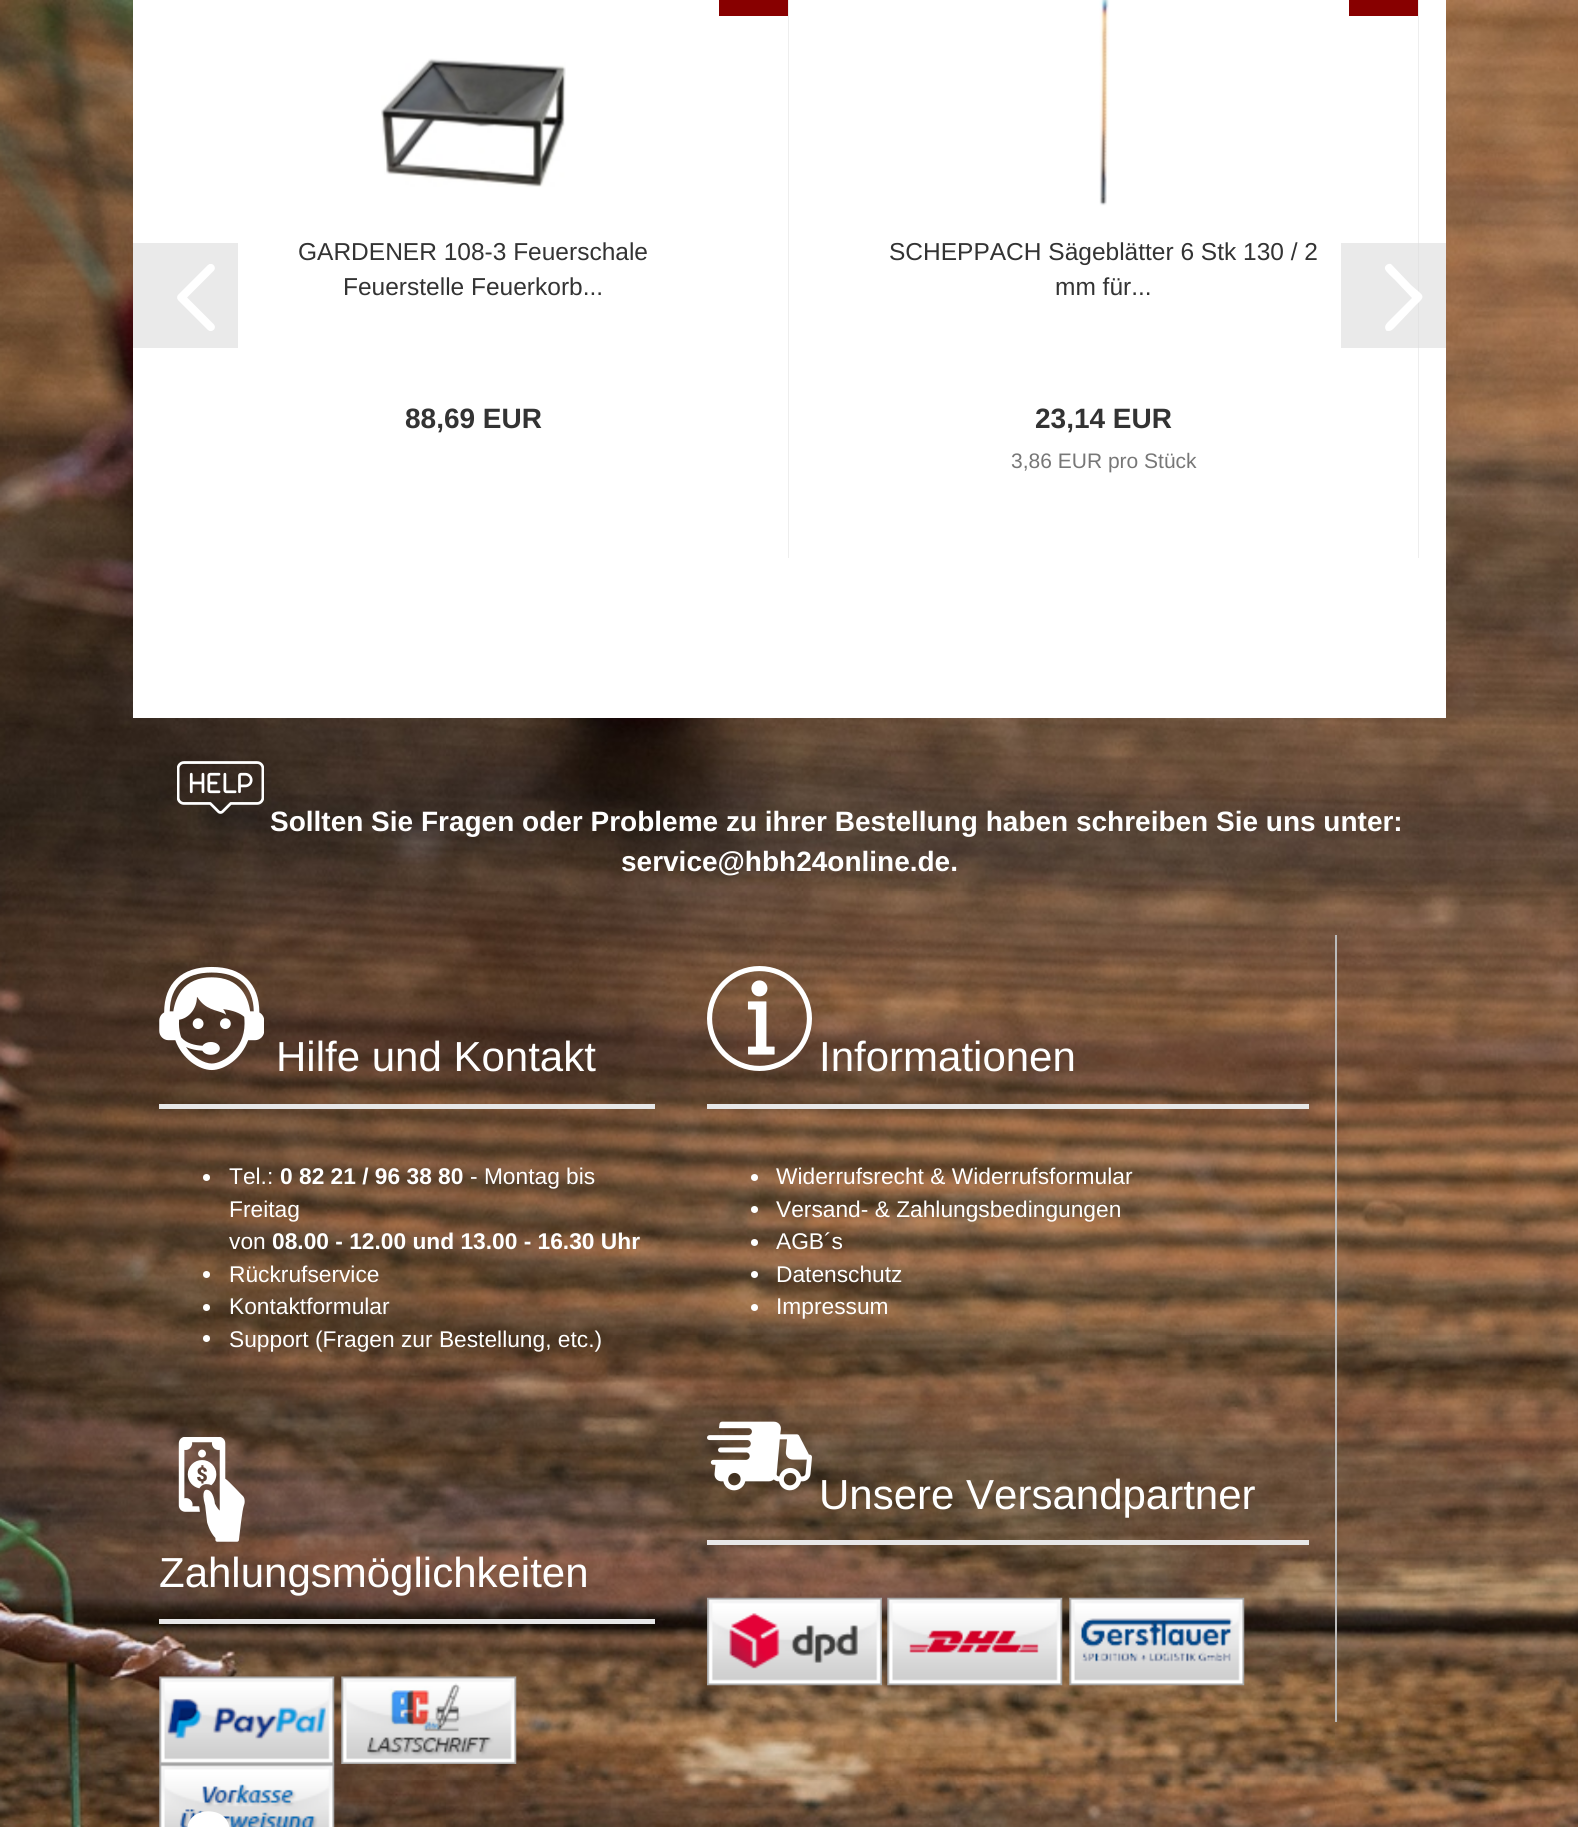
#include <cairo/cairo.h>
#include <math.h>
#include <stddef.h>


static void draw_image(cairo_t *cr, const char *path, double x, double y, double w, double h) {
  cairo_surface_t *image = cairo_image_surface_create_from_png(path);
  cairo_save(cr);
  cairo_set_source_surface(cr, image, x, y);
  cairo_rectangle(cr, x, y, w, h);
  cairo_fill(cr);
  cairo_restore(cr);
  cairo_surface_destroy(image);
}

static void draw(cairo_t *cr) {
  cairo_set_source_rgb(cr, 1, 1, 1);
  cairo_paint(cr);
  draw_image(cr, "images/1.png", 0, 0, 1578, 1827);
  cairo_set_source_rgb(cr, 1, 1, 1);
  cairo_rectangle(cr, 133, 0, 1313, 718);
  cairo_fill(cr);
  cairo_set_source_rgb(cr, 234 / 255.0, 234 / 255.0, 234 / 255.0);
  cairo_rectangle(cr, 133, 243, 105, 105);
  cairo_fill(cr);
  draw_image(cr, "images/2.png", 177, 264, 38, 67);
  cairo_set_source_rgb(cr, 238 / 255.0, 238 / 255.0, 238 / 255.0);
  cairo_rectangle(cr, 788, 0, 1, 558);
  cairo_fill(cr);
  cairo_set_source_rgb(cr, 136 / 255.0, 0, 0);
  cairo_rectangle(cr, 719, 0, 69, 16);
  cairo_fill(cr);
  draw_image(cr, "images/3.png", 381, 58, 185, 129);
  cairo_set_source_rgb(cr, 238 / 255.0, 238 / 255.0, 238 / 255.0);
  cairo_rectangle(cr, 1418, 0, 1, 558);
  cairo_fill(cr);
  draw_image(cr, "images/4.png", 1099, 0, 11, 206);
  cairo_set_source_rgb(cr, 136 / 255.0, 0, 0);
  cairo_rectangle(cr, 1349, 0, 69, 16);
  cairo_fill(cr);
  cairo_set_source_rgba(cr, 220 / 255.0, 220 / 255.0, 220 / 255.0, 0.6);
  cairo_rectangle(cr, 1341, 243, 105, 105);
  cairo_fill(cr);
  cairo_set_source_rgb(cr, 1, 1, 1);
  cairo_new_path(cr);
  cairo_move_to(cr, 1389, 331);
  cairo_curve_to(cr, 1387, 331, 1386, 331, 1386, 330);
  cairo_curve_to(cr, 1383, 326, 1388, 322, 1390, 320);
  cairo_line_to(cr, 1412, 298);
  cairo_line_to(cr, 1395, 280);
  cairo_curve_to(cr, 1392, 277, 1386, 272, 1385, 269);
  cairo_curve_to(cr, 1384, 266, 1388, 263, 1391, 264);
  cairo_line_to(cr, 1411, 285);
  cairo_curve_to(cr, 1423, 296, 1427, 295, 1416, 305);
  cairo_line_to(cr, 1397, 325);
  cairo_curve_to(cr, 1395, 327, 1392, 331, 1389, 331);
  cairo_close_path(cr);
  cairo_fill(cr);
  draw_image(cr, "images/5.png", 133, 718, 1313, 1109);
  draw_image(cr, "images/6.png", 177, 761, 87, 53);
  cairo_set_source_rgb(cr, 231 / 255.0, 231 / 255.0, 231 / 255.0);
  cairo_rectangle(cr, 159, 1104, 496, 5);
  cairo_fill(cr);
  draw_image(cr, "images/7.png", 159, 966, 105, 105);
  cairo_set_source_rgb(cr, 1, 1, 1);
  cairo_arc(cr, 206.5, 1177.5, 3.5, 0, 2 * M_PI);
  cairo_fill(cr);
  cairo_arc(cr, 206.5, 1274.5, 3.5, 0, 2 * M_PI);
  cairo_fill(cr);
  cairo_arc(cr, 206.5, 1307.5, 3.5, 0, 2 * M_PI);
  cairo_fill(cr);
  cairo_arc(cr, 206.5, 1338.5, 3.5, 0, 2 * M_PI);
  cairo_fill(cr);
  cairo_set_source_rgb(cr, 231 / 255.0, 231 / 255.0, 231 / 255.0);
  cairo_rectangle(cr, 159, 1619, 496, 5);
  cairo_fill(cr);
  draw_image(cr, "images/8.png", 178, 1437, 67, 105);
  draw_image(cr, "images/9.png", 159, 1676, 176, 88);
  draw_image(cr, "images/10.png", 341, 1676, 176, 88);
  draw_image(cr, "images/11.png", 159, 1764, 176, 63);
  cairo_set_source_rgb(cr, 187 / 255.0, 187 / 255.0, 187 / 255.0);
  cairo_rectangle(cr, 1335, 935, 2, 787);
  cairo_fill(cr);
  cairo_set_source_rgb(cr, 231 / 255.0, 231 / 255.0, 231 / 255.0);
  cairo_rectangle(cr, 707, 1104, 602, 5);
  cairo_fill(cr);
  draw_image(cr, "images/12.png", 707, 966, 105, 105);
  cairo_set_source_rgb(cr, 1, 1, 1);
  cairo_arc(cr, 754.5, 1177.5, 3.5, 0, 2 * M_PI);
  cairo_fill(cr);
  cairo_arc(cr, 754.5, 1209.5, 3.5, 0, 2 * M_PI);
  cairo_fill(cr);
  cairo_arc(cr, 754.5, 1242.5, 3.5, 0, 2 * M_PI);
  cairo_fill(cr);
  cairo_arc(cr, 754.5, 1274.5, 3.5, 0, 2 * M_PI);
  cairo_fill(cr);
  cairo_arc(cr, 754.5, 1307.5, 3.5, 0, 2 * M_PI);
  cairo_fill(cr);
  cairo_set_source_rgb(cr, 231 / 255.0, 231 / 255.0, 231 / 255.0);
  cairo_rectangle(cr, 707, 1540, 602, 5);
  cairo_fill(cr);
  draw_image(cr, "images/13.png", 707, 1421, 105, 70);
  draw_image(cr, "images/14.png", 707, 1597, 175, 89);
  draw_image(cr, "images/15.png", 887, 1597, 176, 89);
  draw_image(cr, "images/16.png", 1069, 1597, 176, 89);
  draw_image(cr, "images/17.png", 187, 1811, 43, 16);
  cairo_select_font_face(cr, "Liberation Sans", CAIRO_FONT_SLANT_NORMAL, CAIRO_FONT_WEIGHT_NORMAL);
  cairo_set_font_size(cr, 24.5);
  cairo_set_source_rgb(cr, 51 / 255.0, 51 / 255.0, 51 / 255.0);
  cairo_move_to(cr, 298, 260);
  cairo_show_text(cr, "GARDENER 108-3 Feuerschale");
  cairo_move_to(cr, 343, 295);
  cairo_show_text(cr, "Feuerstelle Feuerkorb...");
  cairo_select_font_face(cr, "Liberation Sans", CAIRO_FONT_SLANT_NORMAL, CAIRO_FONT_WEIGHT_BOLD);
  cairo_set_font_size(cr, 28);
  cairo_move_to(cr, 405, 428);
  cairo_show_text(cr, "88,69 EUR");
  cairo_select_font_face(cr, "Liberation Sans", CAIRO_FONT_SLANT_NORMAL, CAIRO_FONT_WEIGHT_NORMAL);
  cairo_set_font_size(cr, 24.5);
  cairo_move_to(cr, 889, 260);
  cairo_show_text(cr, "SCHEPPACH Sägeblätter 6 Stk 130 / 2");
  cairo_move_to(cr, 1055, 295);
  cairo_show_text(cr, "mm für...");
  cairo_select_font_face(cr, "Liberation Sans", CAIRO_FONT_SLANT_NORMAL, CAIRO_FONT_WEIGHT_BOLD);
  cairo_set_font_size(cr, 28);
  cairo_move_to(cr, 1035, 428);
  cairo_show_text(cr, "23,14 EUR");
  cairo_select_font_face(cr, "Liberation Sans", CAIRO_FONT_SLANT_NORMAL, CAIRO_FONT_WEIGHT_NORMAL);
  cairo_set_font_size(cr, 21);
  cairo_set_source_rgb(cr, 119 / 255.0, 119 / 255.0, 119 / 255.0);
  cairo_move_to(cr, 1011, 468);
  cairo_show_text(cr, "3,86 EUR pro Stück");
  cairo_select_font_face(cr, "Liberation Sans", CAIRO_FONT_SLANT_NORMAL, CAIRO_FONT_WEIGHT_BOLD);
  cairo_set_font_size(cr, 28);
  cairo_set_source_rgb(cr, 1, 1, 1);
  cairo_move_to(cr, 270, 831);
  cairo_show_text(cr, "Sollten Sie Fragen oder Probleme zu ihrer Bestellung haben schreiben Sie uns unter:");
  cairo_move_to(cr, 621, 871);
  cairo_show_text(cr, "service@hbh24online.de.");
  cairo_select_font_face(cr, "Liberation Sans", CAIRO_FONT_SLANT_NORMAL, CAIRO_FONT_WEIGHT_NORMAL);
  cairo_set_font_size(cr, 42);
  cairo_move_to(cr, 276, 1071);
  cairo_show_text(cr, "Hilfe und Kontakt");
  cairo_set_font_size(cr, 22.75);
  cairo_move_to(cr, 229, 1184);
  cairo_show_text(cr, "Tel.:");
  cairo_select_font_face(cr, "Liberation Sans", CAIRO_FONT_SLANT_NORMAL, CAIRO_FONT_WEIGHT_BOLD);
  cairo_move_to(cr, 280, 1184);
  cairo_show_text(cr, "0 82 21 / 96 38 80");
  cairo_select_font_face(cr, "Liberation Sans", CAIRO_FONT_SLANT_NORMAL, CAIRO_FONT_WEIGHT_NORMAL);
  cairo_move_to(cr, 470, 1184);
  cairo_show_text(cr, "- Montag bis");
  cairo_move_to(cr, 229, 1217);
  cairo_show_text(cr, "Freitag");
  cairo_move_to(cr, 229, 1249);
  cairo_show_text(cr, "von");
  cairo_select_font_face(cr, "Liberation Sans", CAIRO_FONT_SLANT_NORMAL, CAIRO_FONT_WEIGHT_BOLD);
  cairo_move_to(cr, 272, 1249);
  cairo_show_text(cr, "08.00 - 12.00 und 13.00 - 16.30 Uhr");
  cairo_select_font_face(cr, "Liberation Sans", CAIRO_FONT_SLANT_NORMAL, CAIRO_FONT_WEIGHT_NORMAL);
  cairo_move_to(cr, 229, 1282);
  cairo_show_text(cr, "Rückrufservice");
  cairo_move_to(cr, 229, 1314);
  cairo_show_text(cr, "Kontaktformular");
  cairo_move_to(cr, 229, 1347);
  cairo_show_text(cr, "Support (Fragen zur Bestellung, etc.)");
  cairo_set_font_size(cr, 42);
  cairo_move_to(cr, 159, 1587);
  cairo_show_text(cr, "Zahlungsmöglichkeiten");
  cairo_move_to(cr, 819, 1071);
  cairo_show_text(cr, "Informationen");
  cairo_set_font_size(cr, 22.75);
  cairo_move_to(cr, 776, 1184);
  cairo_show_text(cr, "Widerrufsrecht & Widerrufsformular");
  cairo_move_to(cr, 776, 1217);
  cairo_show_text(cr, "Versand- & Zahlungsbedingungen");
  cairo_move_to(cr, 776, 1249);
  cairo_show_text(cr, "AGB´s");
  cairo_move_to(cr, 776, 1282);
  cairo_show_text(cr, "Datenschutz");
  cairo_move_to(cr, 776, 1314);
  cairo_show_text(cr, "Impressum");
  cairo_set_font_size(cr, 42);
  cairo_move_to(cr, 819, 1509);
  cairo_show_text(cr, "Unsere Versandpartner");
}

int main(void) {
  cairo_surface_t *surface = cairo_image_surface_create(CAIRO_FORMAT_RGB24, 1578, 1827);
  cairo_t *cr = cairo_create(surface);
  cairo_font_options_t *options = cairo_font_options_create();
  cairo_font_options_set_hint_metrics(options, CAIRO_HINT_METRICS_OFF);
  cairo_font_options_set_hint_style(options, CAIRO_HINT_STYLE_NONE);
  cairo_set_font_options(cr, options);
  cairo_set_miter_limit(cr, 4);
  draw(cr);
  cairo_surface_write_to_png(surface, "out.png");
  cairo_font_options_destroy(options);
  cairo_destroy(cr);
  cairo_surface_destroy(surface);
  return 0;
}
